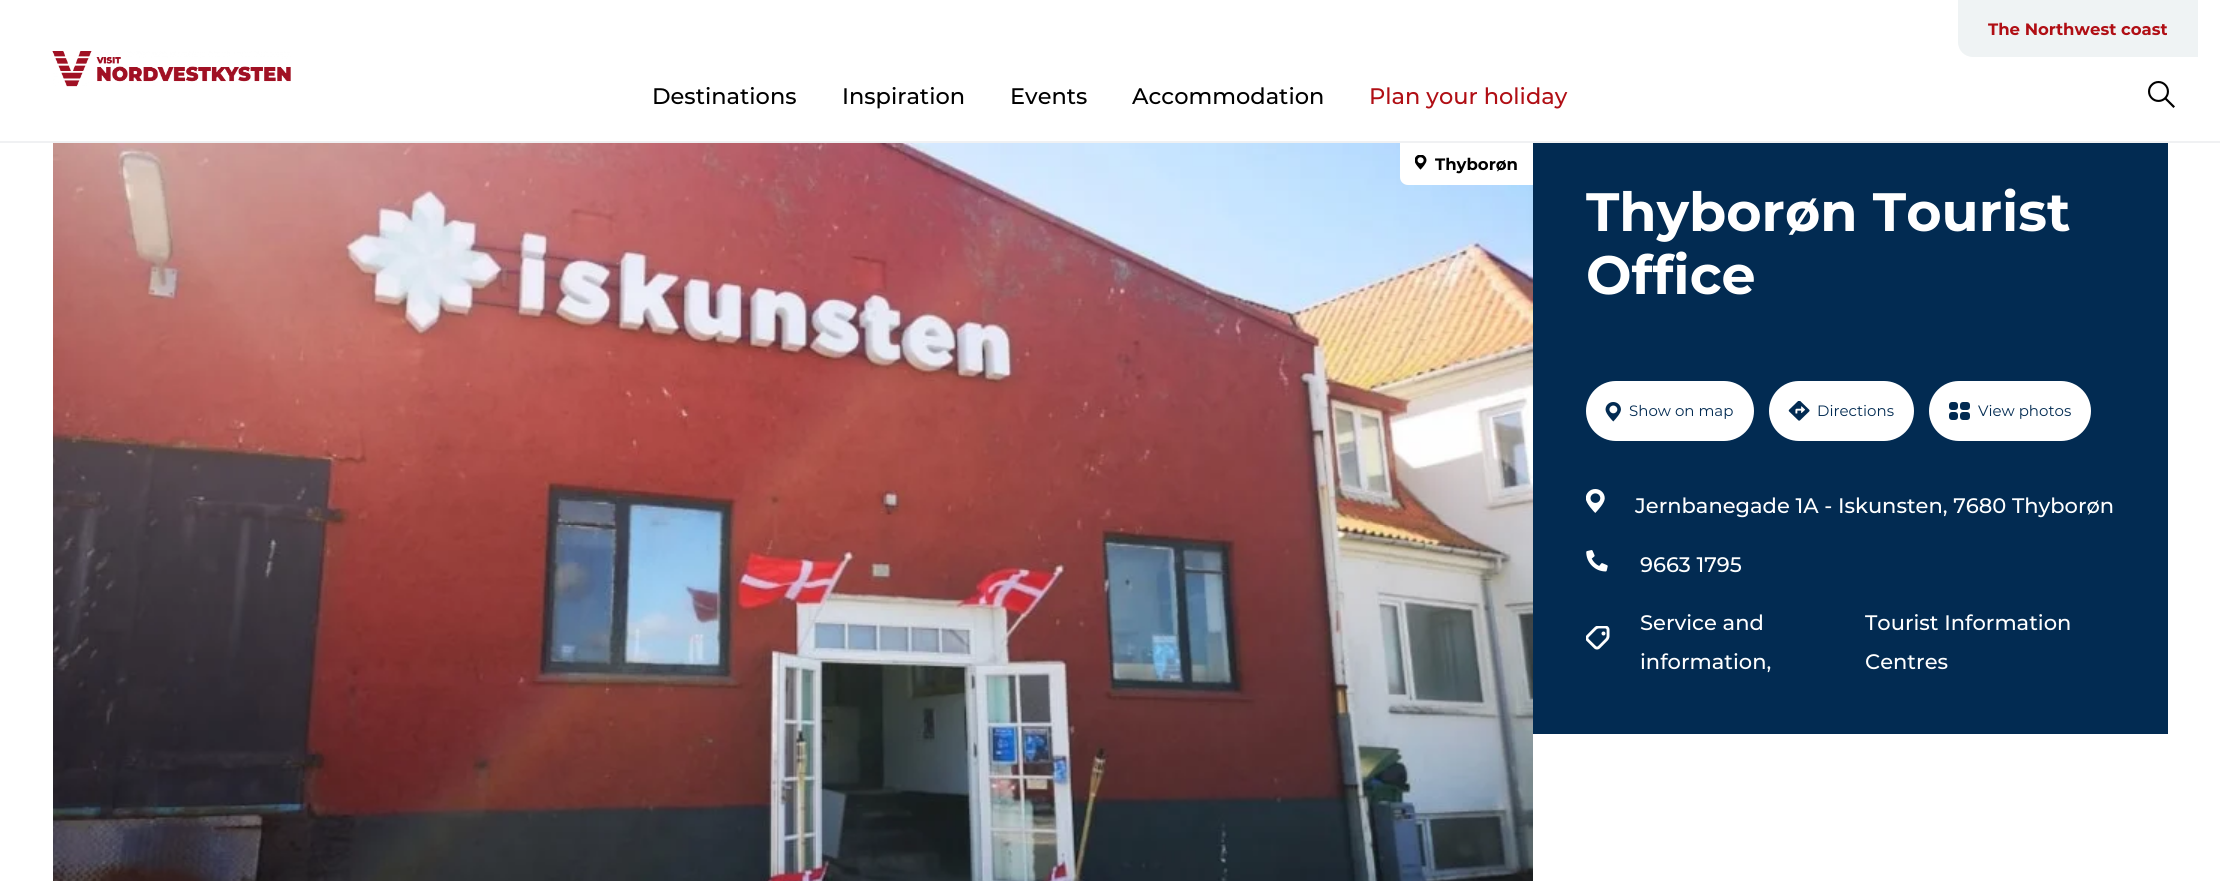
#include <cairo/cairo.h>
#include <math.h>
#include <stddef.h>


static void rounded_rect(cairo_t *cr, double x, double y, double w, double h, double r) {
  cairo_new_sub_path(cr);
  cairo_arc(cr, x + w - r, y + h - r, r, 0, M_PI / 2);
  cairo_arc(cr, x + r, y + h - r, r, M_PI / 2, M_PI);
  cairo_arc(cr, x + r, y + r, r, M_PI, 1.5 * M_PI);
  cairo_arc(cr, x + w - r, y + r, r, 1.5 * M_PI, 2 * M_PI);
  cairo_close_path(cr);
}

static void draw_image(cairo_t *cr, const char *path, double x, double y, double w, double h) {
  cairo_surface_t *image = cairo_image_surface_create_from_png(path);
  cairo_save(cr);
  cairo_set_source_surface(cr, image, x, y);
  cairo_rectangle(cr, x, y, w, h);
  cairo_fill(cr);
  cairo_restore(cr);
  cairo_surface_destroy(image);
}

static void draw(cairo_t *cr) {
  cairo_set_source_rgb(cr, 1, 1, 1);
  cairo_paint(cr);
  cairo_set_source_rgb(cr, 240 / 255.0, 241 / 255.0, 243 / 255.0);
  cairo_rectangle(cr, 0, 141, 2220, 2);
  cairo_fill(cr);
  draw_image(cr, "images/1.png", 52, 51, 239, 36);
  cairo_set_source_rgb(cr, 239 / 255.0, 243 / 255.0, 244 / 255.0);
  cairo_new_path(cr);
  cairo_move_to(cr, 1958, 0);
  cairo_line_to(cr, 2198, 0);
  cairo_line_to(cr, 2198, 57);
  cairo_line_to(cr, 1973, 57);
  cairo_curve_to(cr, 1964.5, 57, 1958, 50.5, 1958, 42);
  cairo_close_path(cr);
  cairo_fill(cr);
  draw_image(cr, "images/2.png", 2148, 81, 27, 27);
  draw_image(cr, "images/3.png", 53, 143, 1480, 738);
  cairo_set_source_rgb(cr, 1, 1, 1);
  cairo_new_path(cr);
  cairo_move_to(cr, 1400, 143);
  cairo_line_to(cr, 1533, 143);
  cairo_line_to(cr, 1533, 185);
  cairo_line_to(cr, 1408, 185);
  cairo_curve_to(cr, 1403.5, 185, 1400, 181.5, 1400, 177);
  cairo_close_path(cr);
  cairo_fill(cr);
  draw_image(cr, "images/4.png", 1415, 155, 12, 15);
  cairo_set_source_rgb(cr, 2 / 255.0, 43 / 255.0, 82 / 255.0);
  cairo_rectangle(cr, 1533, 143, 635, 591);
  cairo_fill(cr);
  cairo_set_source_rgb(cr, 1, 1, 1);
  rounded_rect(cr, 1586, 381, 168, 60, 30);
  cairo_fill(cr);
  draw_image(cr, "images/5.png", 1605, 402, 16, 20);
  rounded_rect(cr, 1769, 381, 145, 60, 30);
  cairo_fill(cr);
  draw_image(cr, "images/6.png", 1788, 401, 22, 20);
  rounded_rect(cr, 1929, 381, 162, 60, 30);
  cairo_fill(cr);
  cairo_set_source_rgb(cr, 2 / 255.0, 43 / 255.0, 82 / 255.0);
  rounded_rect(cr, 1960, 402, 10, 8, 3);
  cairo_fill(cr);
  rounded_rect(cr, 1960, 412, 10, 8, 3);
  cairo_fill(cr);
  rounded_rect(cr, 1949, 402, 9, 8, 3);
  cairo_fill(cr);
  rounded_rect(cr, 1949, 412, 9, 8, 3);
  cairo_fill(cr);
  draw_image(cr, "images/7.png", 1586, 489, 19, 24);
  draw_image(cr, "images/8.png", 1586, 550, 22, 22);
  draw_image(cr, "images/9.png", 1586, 626, 24, 24);
  cairo_select_font_face(cr, "Montserrat", CAIRO_FONT_SLANT_NORMAL, CAIRO_FONT_WEIGHT_BOLD);
  cairo_set_font_size(cr, 16.5);
  cairo_set_source_rgb(cr, 176 / 255.0, 14 / 255.0, 20 / 255.0);
  cairo_move_to(cr, 1988, 35);
  cairo_show_text(cr, "The Northwest coast");
  cairo_select_font_face(cr, "Montserrat Medium", CAIRO_FONT_SLANT_NORMAL, CAIRO_FONT_WEIGHT_NORMAL);
  cairo_set_font_size(cr, 22.5);
  cairo_set_source_rgb(cr, 0, 0, 0);
  cairo_move_to(cr, 652, 104);
  cairo_show_text(cr, "Destinations");
  cairo_move_to(cr, 842, 104);
  cairo_show_text(cr, "Inspiration");
  cairo_move_to(cr, 1010, 104);
  cairo_show_text(cr, "Events");
  cairo_move_to(cr, 1132, 104);
  cairo_show_text(cr, "Accommodation");
  cairo_set_source_rgb(cr, 176 / 255.0, 14 / 255.0, 20 / 255.0);
  cairo_move_to(cr, 1369, 104);
  cairo_show_text(cr, "Plan your holiday");
  cairo_select_font_face(cr, "Montserrat", CAIRO_FONT_SLANT_NORMAL, CAIRO_FONT_WEIGHT_BOLD);
  cairo_set_font_size(cr, 16.5);
  cairo_set_source_rgb(cr, 0, 0, 0);
  cairo_move_to(cr, 1435, 170);
  cairo_show_text(cr, "Thyborøn");
  cairo_set_font_size(cr, 54);
  cairo_set_source_rgb(cr, 1, 1, 1);
  cairo_move_to(cr, 1586, 231);
  cairo_show_text(cr, "Thyborøn Tourist");
  cairo_move_to(cr, 1586, 294);
  cairo_show_text(cr, "Office");
  cairo_select_font_face(cr, "Montserrat", CAIRO_FONT_SLANT_NORMAL, CAIRO_FONT_WEIGHT_NORMAL);
  cairo_set_font_size(cr, 15);
  cairo_set_source_rgb(cr, 2 / 255.0, 43 / 255.0, 82 / 255.0);
  cairo_move_to(cr, 1629, 416);
  cairo_show_text(cr, "Show on map");
  cairo_move_to(cr, 1817, 416);
  cairo_show_text(cr, "Directions");
  cairo_move_to(cr, 1978, 416);
  cairo_show_text(cr, "View photos");
  cairo_select_font_face(cr, "Montserrat Medium", CAIRO_FONT_SLANT_NORMAL, CAIRO_FONT_WEIGHT_NORMAL);
  cairo_set_font_size(cr, 21);
  cairo_set_source_rgb(cr, 1, 1, 1);
  cairo_move_to(cr, 1635, 513);
  cairo_show_text(cr, "Jernbanegade 1A - Iskunsten, 7680 Thyborøn");
  cairo_move_to(cr, 1640, 572);
  cairo_show_text(cr, "9663 1795");
  cairo_move_to(cr, 1640, 630);
  cairo_show_text(cr, "Service and");
  cairo_move_to(cr, 1640, 669);
  cairo_show_text(cr, "information,");
  cairo_move_to(cr, 1865, 630);
  cairo_show_text(cr, "Tourist Information");
  cairo_move_to(cr, 1865, 669);
  cairo_show_text(cr, "Centres");
}

int main(void) {
  cairo_surface_t *surface = cairo_image_surface_create(CAIRO_FORMAT_RGB24, 2220, 881);
  cairo_t *cr = cairo_create(surface);
  cairo_font_options_t *options = cairo_font_options_create();
  cairo_font_options_set_hint_metrics(options, CAIRO_HINT_METRICS_OFF);
  cairo_font_options_set_hint_style(options, CAIRO_HINT_STYLE_NONE);
  cairo_set_font_options(cr, options);
  cairo_set_miter_limit(cr, 4);
  draw(cr);
  cairo_surface_write_to_png(surface, "out.png");
  cairo_font_options_destroy(options);
  cairo_destroy(cr);
  cairo_surface_destroy(surface);
  return 0;
}
